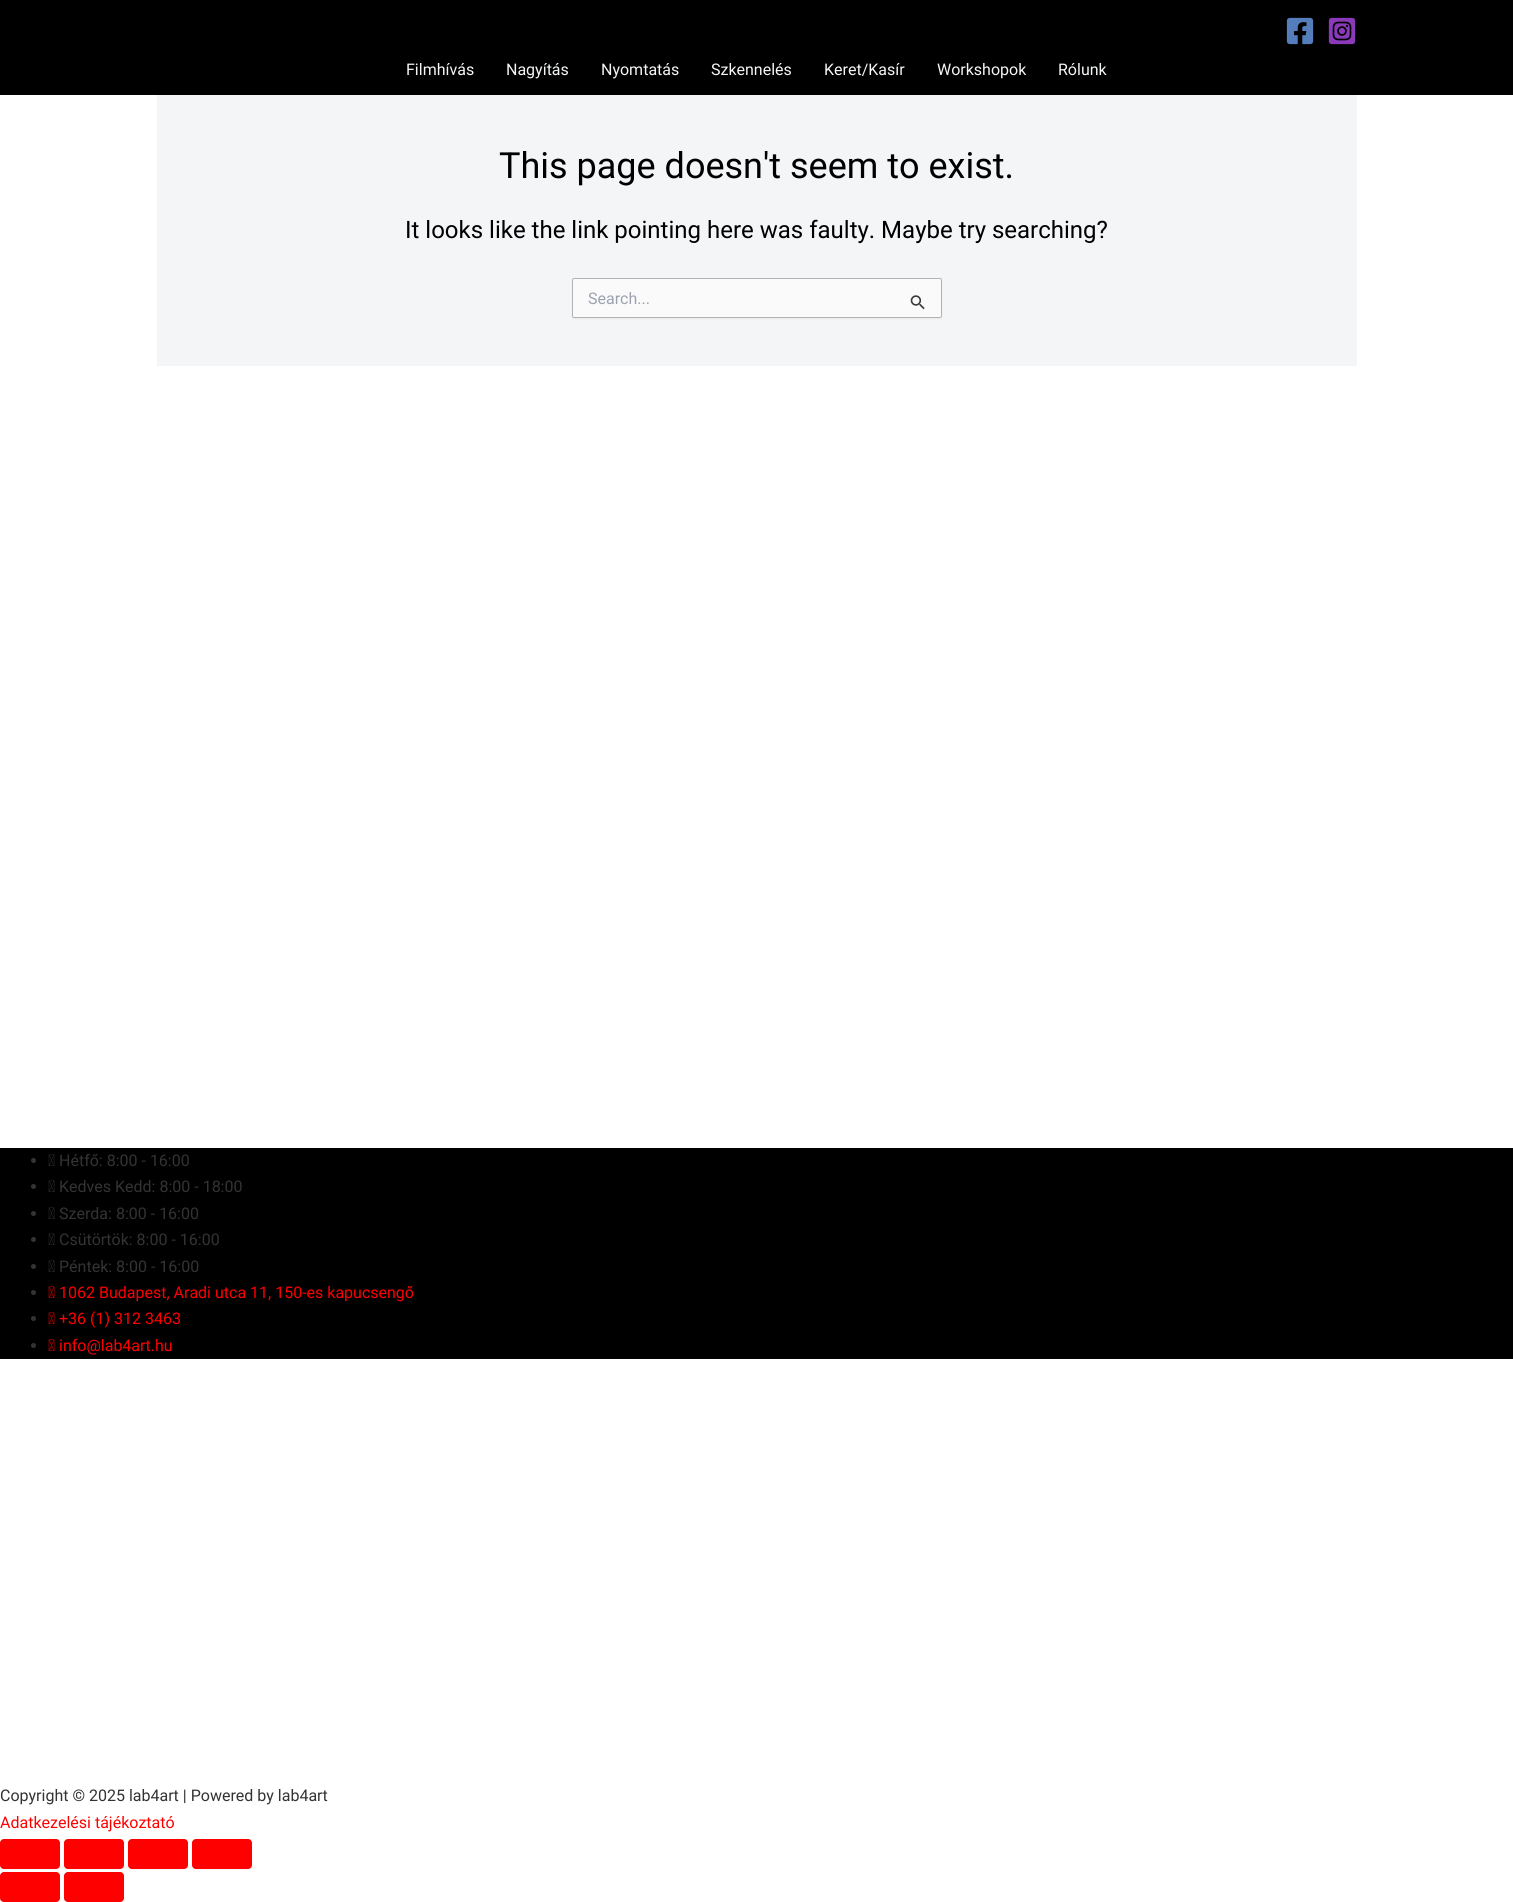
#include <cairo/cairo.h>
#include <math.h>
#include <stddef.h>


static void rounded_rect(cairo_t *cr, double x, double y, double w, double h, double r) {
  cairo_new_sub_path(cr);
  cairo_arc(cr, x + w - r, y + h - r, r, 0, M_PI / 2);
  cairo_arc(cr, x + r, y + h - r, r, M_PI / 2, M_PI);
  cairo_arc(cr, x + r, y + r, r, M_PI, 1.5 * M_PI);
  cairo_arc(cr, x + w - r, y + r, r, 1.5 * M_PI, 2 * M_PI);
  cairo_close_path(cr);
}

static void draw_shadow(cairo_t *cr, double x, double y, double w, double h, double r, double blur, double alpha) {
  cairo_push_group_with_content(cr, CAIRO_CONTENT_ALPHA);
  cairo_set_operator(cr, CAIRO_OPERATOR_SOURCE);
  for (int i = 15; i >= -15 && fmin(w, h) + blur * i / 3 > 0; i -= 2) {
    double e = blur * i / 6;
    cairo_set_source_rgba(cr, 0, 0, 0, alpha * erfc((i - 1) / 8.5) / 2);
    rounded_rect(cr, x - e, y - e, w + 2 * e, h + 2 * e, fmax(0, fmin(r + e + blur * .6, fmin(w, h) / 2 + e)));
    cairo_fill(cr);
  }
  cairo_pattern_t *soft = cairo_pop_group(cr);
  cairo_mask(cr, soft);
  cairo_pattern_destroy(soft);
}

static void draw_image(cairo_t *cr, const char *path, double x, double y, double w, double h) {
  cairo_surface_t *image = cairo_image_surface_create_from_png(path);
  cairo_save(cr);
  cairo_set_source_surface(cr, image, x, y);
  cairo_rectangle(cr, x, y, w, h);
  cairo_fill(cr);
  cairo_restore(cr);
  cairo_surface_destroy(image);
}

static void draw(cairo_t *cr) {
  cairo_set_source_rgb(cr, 1, 1, 1);
  cairo_paint(cr);
  cairo_set_source_rgb(cr, 0, 0, 0);
  cairo_rectangle(cr, 0, 0, 1513, 95);
  cairo_fill(cr);
  draw_image(cr, "images/1.png", 1286, 17, 28, 28);
  draw_image(cr, "images/2.png", 1328, 17, 28, 28);
  cairo_set_source_rgb(cr, 244 / 255.0, 245 / 255.0, 247 / 255.0);
  cairo_rectangle(cr, 157, 95, 1200, 271);
  cairo_fill(cr);
  cairo_set_source_rgb(cr, 0, 0, 0);
  draw_shadow(cr, 572, 279, 370, 40, 2, 1, 0.05);
  cairo_set_source_rgb(cr, 250 / 255.0, 250 / 255.0, 250 / 255.0);
  rounded_rect(cr, 572.5, 278.5, 369, 39, 1.5);
  cairo_fill_preserve(cr);
  cairo_set_source_rgb(cr, 179 / 255.0, 179 / 255.0, 179 / 255.0);
  cairo_set_line_width(cr, 1);
  cairo_stroke(cr);
  draw_image(cr, "images/3.png", 910, 295, 15, 15);
  cairo_set_source_rgb(cr, 0, 0, 0);
  cairo_rectangle(cr, 0, 1148, 1513, 211);
  cairo_fill(cr);
  cairo_set_source_rgb(cr, 51 / 255.0, 51 / 255.0, 51 / 255.0);
  cairo_arc(cr, 33.5, 1160.5, 2.5, 0, 2 * M_PI);
  cairo_fill(cr);
  draw_image(cr, "images/4.png", 48, 1154, 7, 12);
  cairo_arc(cr, 33.5, 1186.5, 2.5, 0, 2 * M_PI);
  cairo_fill(cr);
  draw_image(cr, "images/4.png", 48, 1180, 7, 12);
  cairo_arc(cr, 33.5, 1213.5, 2.5, 0, 2 * M_PI);
  cairo_fill(cr);
  draw_image(cr, "images/4.png", 48, 1207, 7, 12);
  cairo_arc(cr, 33.5, 1239.5, 2.5, 0, 2 * M_PI);
  cairo_fill(cr);
  draw_image(cr, "images/4.png", 48, 1233, 7, 12);
  cairo_arc(cr, 33.5, 1266.5, 2.5, 0, 2 * M_PI);
  cairo_fill(cr);
  draw_image(cr, "images/4.png", 48, 1260, 7, 12);
  cairo_arc(cr, 33.5, 1292.5, 2.5, 0, 2 * M_PI);
  cairo_fill(cr);
  draw_image(cr, "images/5.png", 48, 1286, 7, 12);
  cairo_arc(cr, 33.5, 1318.5, 2.5, 0, 2 * M_PI);
  cairo_fill(cr);
  draw_image(cr, "images/5.png", 48, 1312, 7, 12);
  cairo_arc(cr, 33.5, 1345.5, 2.5, 0, 2 * M_PI);
  cairo_fill(cr);
  draw_image(cr, "images/5.png", 48, 1339, 7, 12);
  cairo_set_source_rgb(cr, 0, 0, 0);
  draw_shadow(cr, 0, 1840, 60, 30, 4, 1, 0.05);
  cairo_set_source_rgb(cr, 1, 0, 0);
  rounded_rect(cr, 0, 1839, 60, 30, 4);
  cairo_fill(cr);
  cairo_set_source_rgb(cr, 0, 0, 0);
  draw_shadow(cr, 64, 1840, 60, 30, 4, 1, 0.05);
  cairo_set_source_rgb(cr, 1, 0, 0);
  rounded_rect(cr, 64, 1839, 60, 30, 4);
  cairo_fill(cr);
  cairo_set_source_rgb(cr, 0, 0, 0);
  draw_shadow(cr, 128, 1840, 60, 30, 4, 1, 0.05);
  cairo_set_source_rgb(cr, 1, 0, 0);
  rounded_rect(cr, 128, 1839, 60, 30, 4);
  cairo_fill(cr);
  cairo_set_source_rgb(cr, 0, 0, 0);
  draw_shadow(cr, 192, 1840, 60, 30, 4, 1, 0.05);
  cairo_set_source_rgb(cr, 1, 0, 0);
  rounded_rect(cr, 192, 1839, 60, 30, 4);
  cairo_fill(cr);
  cairo_set_source_rgb(cr, 0, 0, 0);
  draw_shadow(cr, 0, 1873, 60, 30, 4, 1, 0.05);
  cairo_set_source_rgb(cr, 1, 0, 0);
  rounded_rect(cr, 0, 1872, 60, 30, 4);
  cairo_fill(cr);
  cairo_set_source_rgb(cr, 0, 0, 0);
  draw_shadow(cr, 64, 1873, 60, 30, 4, 1, 0.05);
  cairo_set_source_rgb(cr, 1, 0, 0);
  rounded_rect(cr, 64, 1872, 60, 30, 4);
  cairo_fill(cr);
  cairo_select_font_face(cr, "Roboto", CAIRO_FONT_SLANT_NORMAL, CAIRO_FONT_WEIGHT_NORMAL);
  cairo_set_font_size(cr, 16);
  cairo_set_source_rgb(cr, 244 / 255.0, 245 / 255.0, 247 / 255.0);
  cairo_move_to(cr, 406, 75);
  cairo_show_text(cr, "Filmhívás");
  cairo_move_to(cr, 506, 75);
  cairo_show_text(cr, "Nagyítás");
  cairo_move_to(cr, 601, 75);
  cairo_show_text(cr, "Nyomtatás");
  cairo_move_to(cr, 711, 75);
  cairo_show_text(cr, "Szkennelés");
  cairo_move_to(cr, 824, 75);
  cairo_show_text(cr, "Keret/Kasír");
  cairo_move_to(cr, 937, 75);
  cairo_show_text(cr, "Workshopok");
  cairo_move_to(cr, 1058, 75);
  cairo_show_text(cr, "Rólunk");
  cairo_set_font_size(cr, 36);
  cairo_set_source_rgb(cr, 0, 0, 0);
  cairo_move_to(cr, 499, 178);
  cairo_show_text(cr, "This page doesn't seem to exist.");
  cairo_set_font_size(cr, 24);
  cairo_move_to(cr, 405, 238);
  cairo_show_text(cr, "It looks like the link pointing here was faulty. Maybe try searching?");
  cairo_set_font_size(cr, 16);
  cairo_set_source_rgb(cr, 156 / 255.0, 163 / 255.0, 175 / 255.0);
  cairo_move_to(cr, 588, 304);
  cairo_show_text(cr, "Search...");
  cairo_set_source_rgb(cr, 51 / 255.0, 51 / 255.0, 51 / 255.0);
  cairo_move_to(cr, 59, 1166);
  cairo_show_text(cr, "Hétfő: 8:00 - 16:00");
  cairo_move_to(cr, 59, 1192);
  cairo_show_text(cr, "Kedves Kedd: 8:00 - 18:00");
  cairo_move_to(cr, 59, 1219);
  cairo_show_text(cr, "Szerda: 8:00 - 16:00");
  cairo_move_to(cr, 59, 1245);
  cairo_show_text(cr, "Csütörtök: 8:00 - 16:00");
  cairo_move_to(cr, 59, 1272);
  cairo_show_text(cr, "Péntek: 8:00 - 16:00");
  cairo_set_source_rgb(cr, 1, 0, 0);
  cairo_move_to(cr, 59, 1298);
  cairo_show_text(cr, "1062 Budapest, Aradi utca 11, 150-es kapucsengő");
  cairo_move_to(cr, 59, 1324);
  cairo_show_text(cr, "+36 (1) 312 3463");
  cairo_move_to(cr, 59, 1351);
  cairo_show_text(cr, "info@lab4art.hu");
  cairo_set_source_rgb(cr, 51 / 255.0, 51 / 255.0, 51 / 255.0);
  cairo_move_to(cr, 0, 1801);
  cairo_show_text(cr, "Copyright © 2025 lab4art | Powered by lab4art");
  cairo_set_source_rgb(cr, 1, 0, 0);
  cairo_move_to(cr, 0, 1828);
  cairo_show_text(cr, "Adatkezelési tájékoztató");
}

int main(void) {
  cairo_surface_t *surface = cairo_image_surface_create(CAIRO_FORMAT_RGB24, 1513, 1902);
  cairo_t *cr = cairo_create(surface);
  cairo_font_options_t *options = cairo_font_options_create();
  cairo_font_options_set_hint_metrics(options, CAIRO_HINT_METRICS_OFF);
  cairo_font_options_set_hint_style(options, CAIRO_HINT_STYLE_NONE);
  cairo_set_font_options(cr, options);
  cairo_set_miter_limit(cr, 4);
  draw(cr);
  cairo_surface_write_to_png(surface, "out.png");
  cairo_font_options_destroy(options);
  cairo_destroy(cr);
  cairo_surface_destroy(surface);
  return 0;
}
